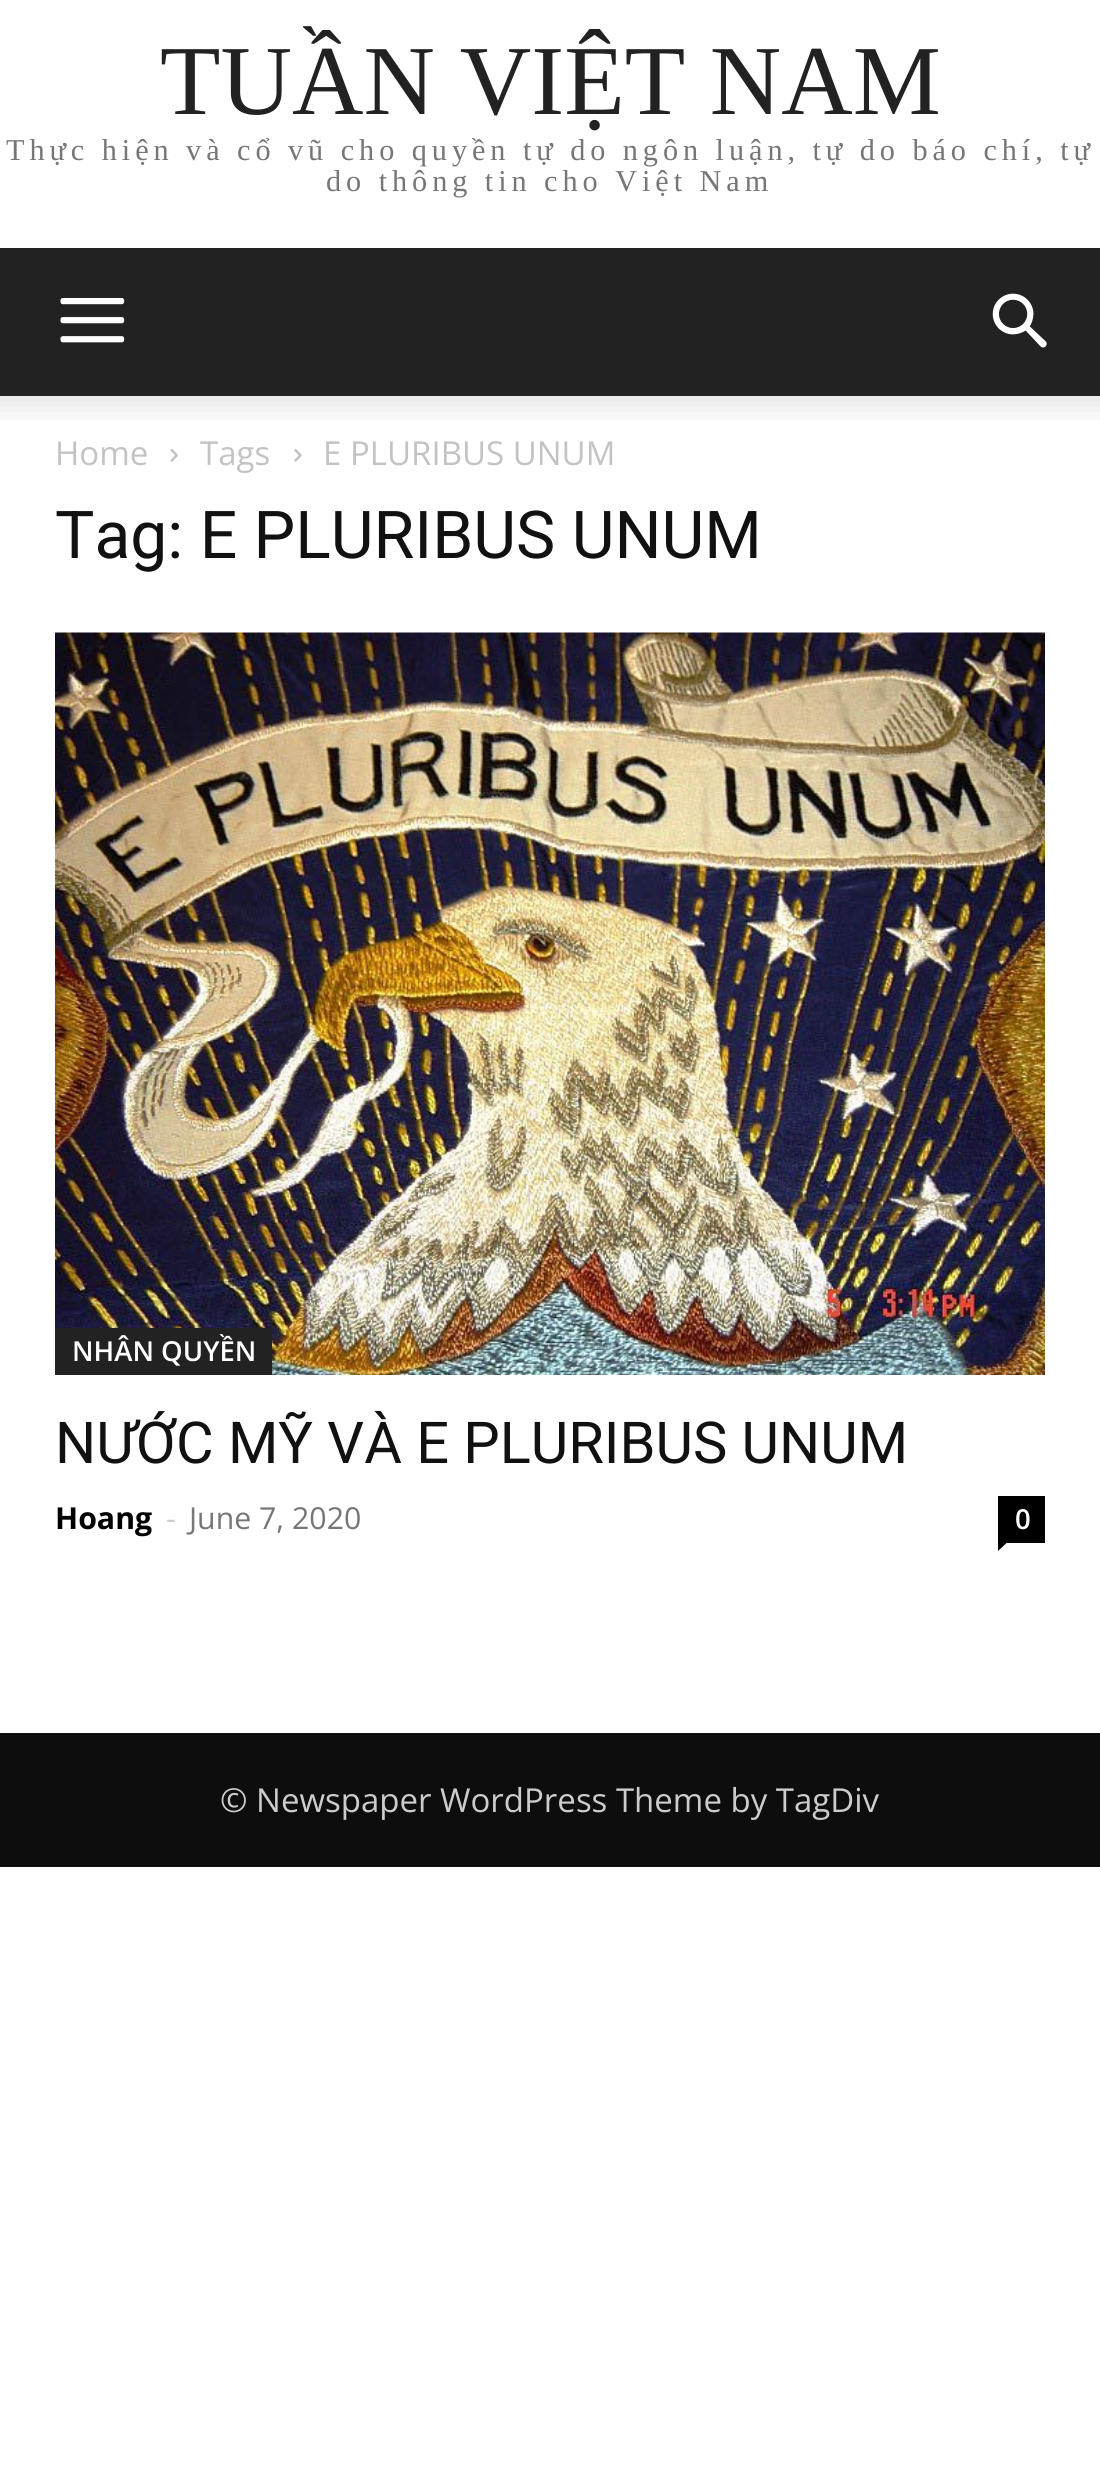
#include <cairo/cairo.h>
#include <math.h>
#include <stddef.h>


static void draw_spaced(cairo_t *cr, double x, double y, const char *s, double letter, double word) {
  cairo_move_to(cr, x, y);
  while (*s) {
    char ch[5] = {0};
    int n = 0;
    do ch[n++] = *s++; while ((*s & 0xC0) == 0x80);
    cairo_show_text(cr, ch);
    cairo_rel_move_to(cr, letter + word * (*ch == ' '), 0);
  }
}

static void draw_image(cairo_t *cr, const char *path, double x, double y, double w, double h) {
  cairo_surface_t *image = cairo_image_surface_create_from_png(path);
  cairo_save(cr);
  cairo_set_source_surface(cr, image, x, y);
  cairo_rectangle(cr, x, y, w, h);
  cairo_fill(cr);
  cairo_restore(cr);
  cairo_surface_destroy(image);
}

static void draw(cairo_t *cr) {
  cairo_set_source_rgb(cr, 1, 1, 1);
  cairo_paint(cr);
  cairo_set_source_rgb(cr, 34 / 255.0, 34 / 255.0, 34 / 255.0);
  cairo_rectangle(cr, 0, 248, 1100, 148);
  cairo_fill(cr);
  draw_image(cr, "images/1.png", 60, 298, 65, 45);
  draw_image(cr, "images/2.png", 992, 293, 55, 55);
  draw_image(cr, "images/3.png", 0, 396, 1100, 24);
  draw_image(cr, "images/4.png", 170, 449, 8, 13);
  draw_image(cr, "images/5.png", 294, 449, 8, 13);
  draw_image(cr, "images/6.png", 55, 632, 990, 743);
  cairo_rectangle(cr, 55, 1328, 217, 47);
  cairo_fill(cr);
  cairo_set_source_rgb(cr, 0, 0, 0);
  cairo_rectangle(cr, 998, 1496, 47, 47);
  cairo_fill(cr);
  cairo_new_path(cr);
  cairo_move_to(cr, 998, 1543);
  cairo_line_to(cr, 1006.5, 1543);
  cairo_line_to(cr, 998, 1551);
  cairo_close_path(cr);
  cairo_fill(cr);
  cairo_set_source_rgb(cr, 13 / 255.0, 13 / 255.0, 13 / 255.0);
  cairo_rectangle(cr, 0, 1733, 1100, 134);
  cairo_fill(cr);
  cairo_select_font_face(cr, "Liberation Serif", CAIRO_FONT_SLANT_NORMAL, CAIRO_FONT_WEIGHT_NORMAL);
  cairo_set_font_size(cr, 99);
  cairo_set_source_rgb(cr, 34 / 255.0, 34 / 255.0, 34 / 255.0);
  cairo_move_to(cr, 160, 114);
  cairo_show_text(cr, "TUẦN VIỆT NAM");
  cairo_set_font_size(cr, 30.25);
  cairo_set_source_rgb(cr, 118 / 255.0, 118 / 255.0, 118 / 255.0);
  draw_spaced(cr, 6, 160, "Thực hiện và cổ vũ cho quyền tự do ngôn luận, tự do báo chí, tự", 4.95, 0);
  draw_spaced(cr, 326, 191, "do thông tin cho Việt Nam", 4.95, 0);
  cairo_select_font_face(cr, "Open Sans", CAIRO_FONT_SLANT_NORMAL, CAIRO_FONT_WEIGHT_NORMAL);
  cairo_set_font_size(cr, 33);
  cairo_set_source_rgb(cr, 195 / 255.0, 195 / 255.0, 195 / 255.0);
  cairo_move_to(cr, 55, 465);
  cairo_show_text(cr, "Home");
  cairo_move_to(cr, 200, 465);
  cairo_show_text(cr, "Tags");
  cairo_move_to(cr, 323, 465);
  cairo_show_text(cr, "E PLURIBUS UNUM");
  cairo_select_font_face(cr, "Roboto", CAIRO_FONT_SLANT_NORMAL, CAIRO_FONT_WEIGHT_NORMAL);
  cairo_set_font_size(cr, 66);
  cairo_set_source_rgb(cr, 17 / 255.0, 17 / 255.0, 17 / 255.0);
  cairo_move_to(cr, 55, 558);
  cairo_show_text(cr, "Tag: E PLURIBUS UNUM");
  cairo_select_font_face(cr, "Open Sans SemiBold", CAIRO_FONT_SLANT_NORMAL, CAIRO_FONT_WEIGHT_NORMAL);
  cairo_set_font_size(cr, 27.5);
  cairo_set_source_rgb(cr, 1, 1, 1);
  cairo_move_to(cr, 72, 1361);
  cairo_show_text(cr, "NHÂN QUYỀN");
  cairo_select_font_face(cr, "Roboto", CAIRO_FONT_SLANT_NORMAL, CAIRO_FONT_WEIGHT_NORMAL);
  cairo_set_font_size(cr, 57.75);
  cairo_set_source_rgb(cr, 17 / 255.0, 17 / 255.0, 17 / 255.0);
  cairo_move_to(cr, 55, 1463);
  cairo_show_text(cr, "NƯỚC MỸ VÀ E PLURIBUS UNUM");
  cairo_select_font_face(cr, "Open Sans", CAIRO_FONT_SLANT_NORMAL, CAIRO_FONT_WEIGHT_BOLD);
  cairo_set_font_size(cr, 30.25);
  cairo_set_source_rgb(cr, 0, 0, 0);
  cairo_move_to(cr, 55, 1529);
  cairo_show_text(cr, "Hoang");
  cairo_select_font_face(cr, "Open Sans", CAIRO_FONT_SLANT_NORMAL, CAIRO_FONT_WEIGHT_NORMAL);
  cairo_set_source_rgb(cr, 204 / 255.0, 204 / 255.0, 204 / 255.0);
  cairo_move_to(cr, 166, 1529);
  cairo_show_text(cr, "-");
  cairo_set_source_rgb(cr, 118 / 255.0, 118 / 255.0, 118 / 255.0);
  cairo_move_to(cr, 189, 1529);
  cairo_show_text(cr, "June 7, 2020");
  cairo_select_font_face(cr, "Open Sans SemiBold", CAIRO_FONT_SLANT_NORMAL, CAIRO_FONT_WEIGHT_NORMAL);
  cairo_set_font_size(cr, 27.5);
  cairo_set_source_rgb(cr, 1, 1, 1);
  cairo_move_to(cr, 1015, 1529);
  cairo_show_text(cr, "0");
  cairo_select_font_face(cr, "Open Sans", CAIRO_FONT_SLANT_NORMAL, CAIRO_FONT_WEIGHT_NORMAL);
  cairo_set_font_size(cr, 33);
  cairo_set_source_rgb(cr, 204 / 255.0, 204 / 255.0, 204 / 255.0);
  cairo_move_to(cr, 220, 1812);
  cairo_show_text(cr, "© Newspaper WordPress Theme by TagDiv");
}

int main(void) {
  cairo_surface_t *surface = cairo_image_surface_create(CAIRO_FORMAT_RGB24, 1100, 2478);
  cairo_t *cr = cairo_create(surface);
  cairo_font_options_t *options = cairo_font_options_create();
  cairo_font_options_set_hint_metrics(options, CAIRO_HINT_METRICS_OFF);
  cairo_font_options_set_hint_style(options, CAIRO_HINT_STYLE_NONE);
  cairo_set_font_options(cr, options);
  cairo_set_miter_limit(cr, 4);
  draw(cr);
  cairo_surface_write_to_png(surface, "out.png");
  cairo_font_options_destroy(options);
  cairo_destroy(cr);
  cairo_surface_destroy(surface);
  return 0;
}
